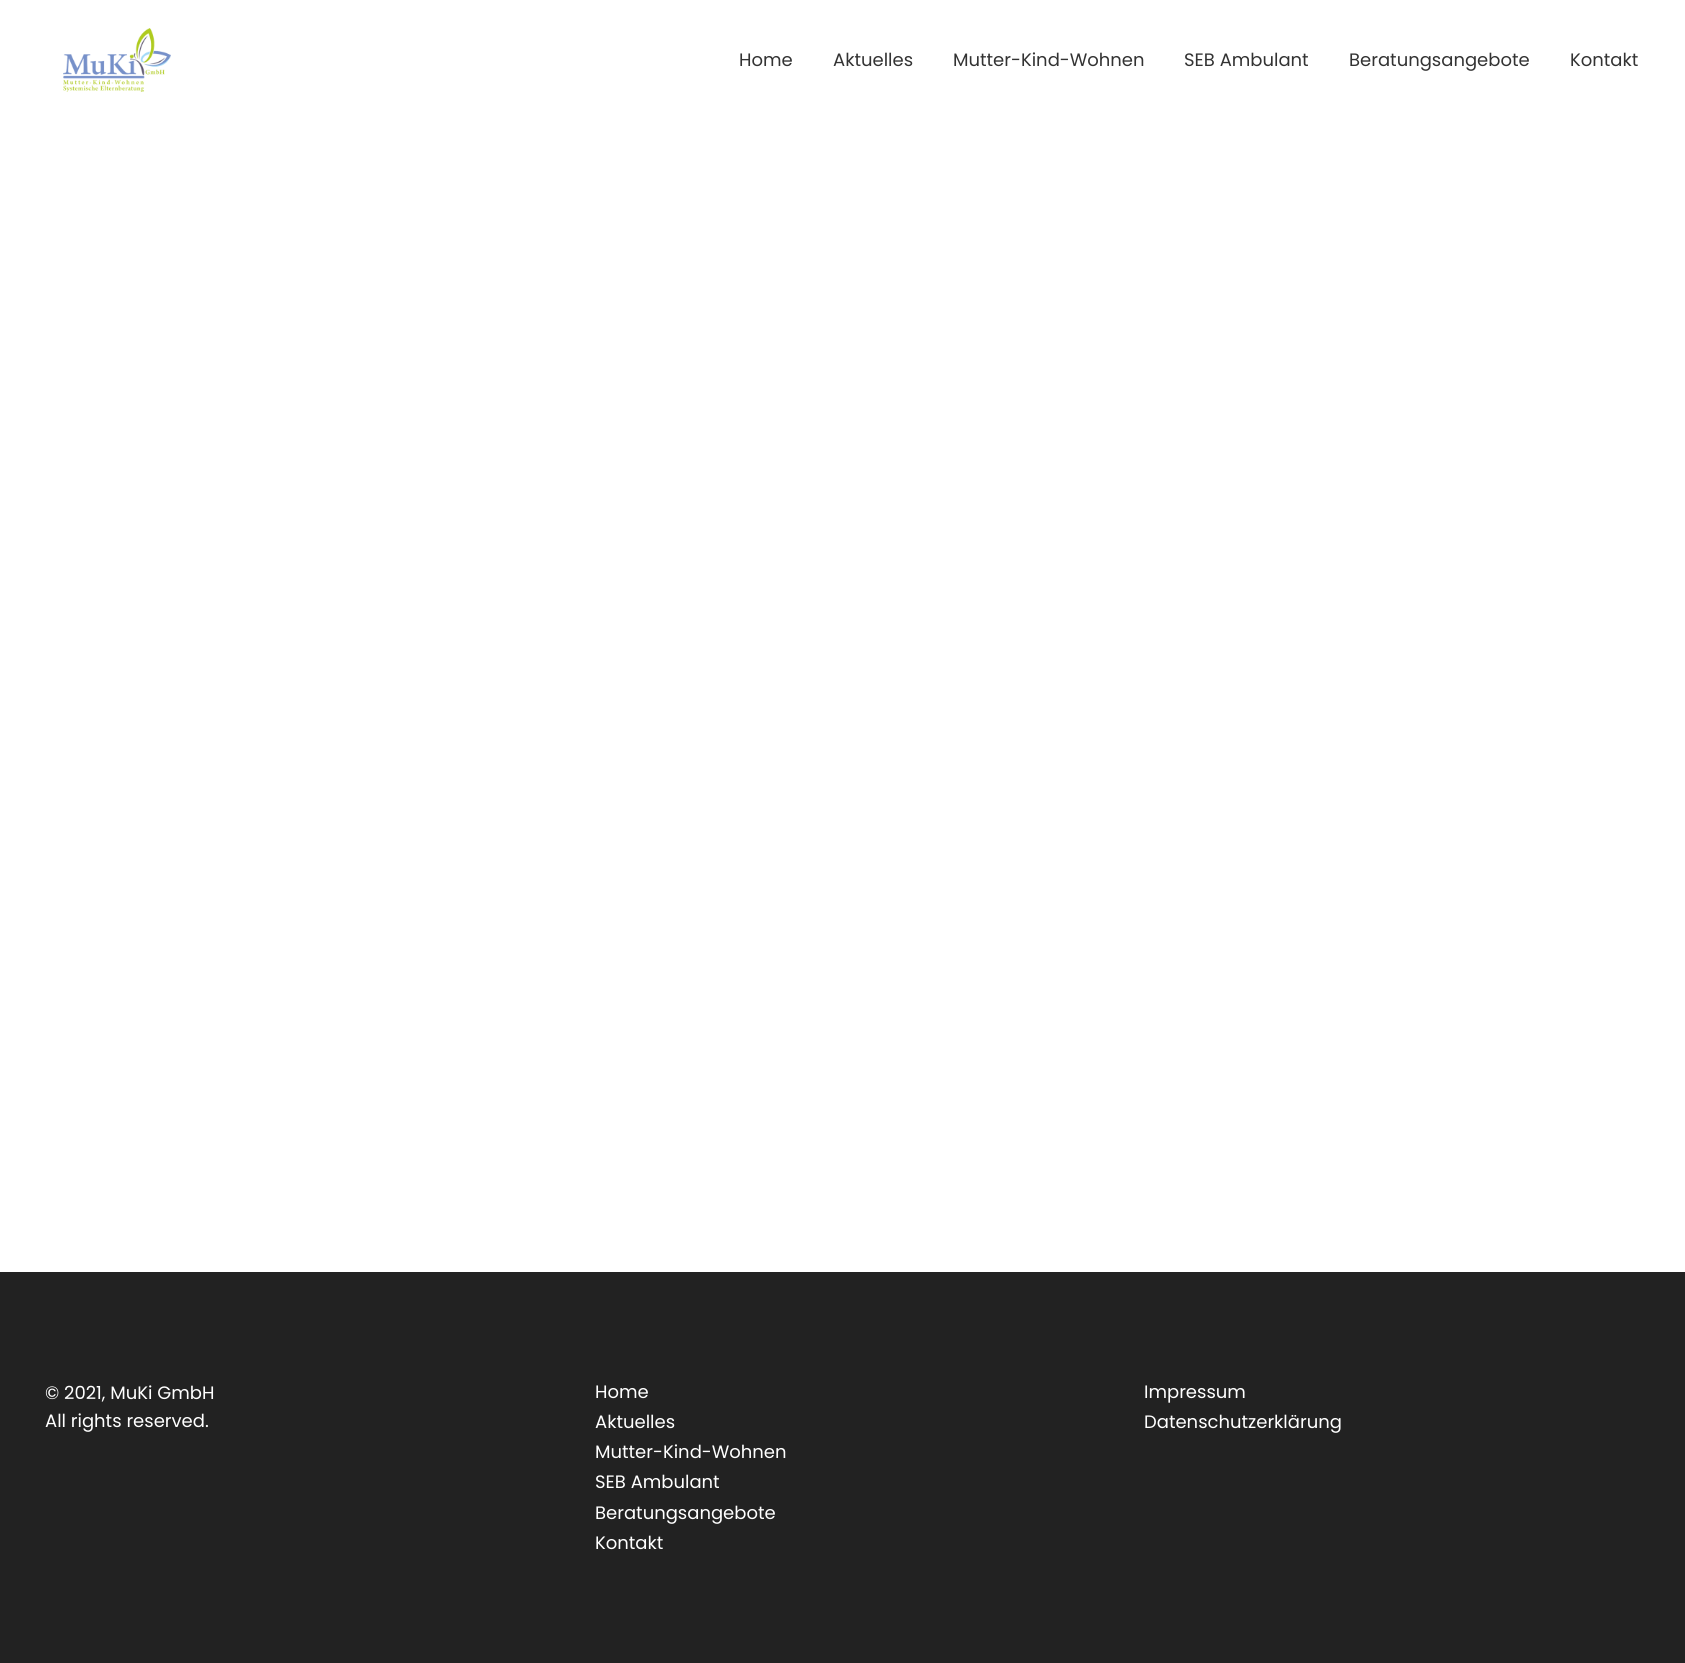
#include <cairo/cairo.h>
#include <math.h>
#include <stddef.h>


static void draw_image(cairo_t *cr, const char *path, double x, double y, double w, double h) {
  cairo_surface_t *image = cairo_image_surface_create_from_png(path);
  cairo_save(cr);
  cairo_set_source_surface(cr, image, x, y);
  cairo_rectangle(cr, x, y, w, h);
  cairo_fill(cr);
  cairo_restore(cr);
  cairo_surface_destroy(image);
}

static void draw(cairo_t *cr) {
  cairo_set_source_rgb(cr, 34 / 255.0, 34 / 255.0, 34 / 255.0);
  cairo_paint(cr);
  cairo_set_source_rgb(cr, 1, 1, 1);
  cairo_rectangle(cr, 0, 0, 1685, 1272);
  cairo_fill(cr);
  draw_image(cr, "images/1.png", 63, 28, 108, 64);
  cairo_select_font_face(cr, "Poppins", CAIRO_FONT_SLANT_NORMAL, CAIRO_FONT_WEIGHT_NORMAL);
  cairo_set_font_size(cr, 18);
  cairo_set_source_rgb(cr, 51 / 255.0, 51 / 255.0, 51 / 255.0);
  cairo_move_to(cr, 739, 66);
  cairo_show_text(cr, "Home");
  cairo_move_to(cr, 833, 66);
  cairo_show_text(cr, "Aktuelles");
  cairo_move_to(cr, 953, 66);
  cairo_show_text(cr, "Mutter-Kind-Wohnen");
  cairo_move_to(cr, 1184, 66);
  cairo_show_text(cr, "SEB Ambulant");
  cairo_move_to(cr, 1349, 66);
  cairo_show_text(cr, "Beratungsangebote");
  cairo_move_to(cr, 1570, 66);
  cairo_show_text(cr, "Kontakt");
  cairo_set_source_rgb(cr, 1, 1, 1);
  cairo_move_to(cr, 45, 1399);
  cairo_show_text(cr, "© 2021, MuKi GmbH");
  cairo_move_to(cr, 45, 1427);
  cairo_show_text(cr, "All rights reserved.");
  cairo_move_to(cr, 595, 1398);
  cairo_show_text(cr, "Home");
  cairo_move_to(cr, 595, 1428);
  cairo_show_text(cr, "Aktuelles");
  cairo_move_to(cr, 595, 1458);
  cairo_show_text(cr, "Mutter-Kind-Wohnen");
  cairo_move_to(cr, 595, 1488);
  cairo_show_text(cr, "SEB Ambulant");
  cairo_move_to(cr, 595, 1519);
  cairo_show_text(cr, "Beratungsangebote");
  cairo_move_to(cr, 595, 1549);
  cairo_show_text(cr, "Kontakt");
  cairo_move_to(cr, 1144, 1398);
  cairo_show_text(cr, "Impressum");
  cairo_move_to(cr, 1144, 1428);
  cairo_show_text(cr, "Datenschutzerklärung");
}

int main(void) {
  cairo_surface_t *surface = cairo_image_surface_create(CAIRO_FORMAT_RGB24, 1685, 1663);
  cairo_t *cr = cairo_create(surface);
  cairo_font_options_t *options = cairo_font_options_create();
  cairo_font_options_set_hint_metrics(options, CAIRO_HINT_METRICS_OFF);
  cairo_font_options_set_hint_style(options, CAIRO_HINT_STYLE_NONE);
  cairo_set_font_options(cr, options);
  cairo_set_miter_limit(cr, 4);
  draw(cr);
  cairo_surface_write_to_png(surface, "out.png");
  cairo_font_options_destroy(options);
  cairo_destroy(cr);
  cairo_surface_destroy(surface);
  return 0;
}
